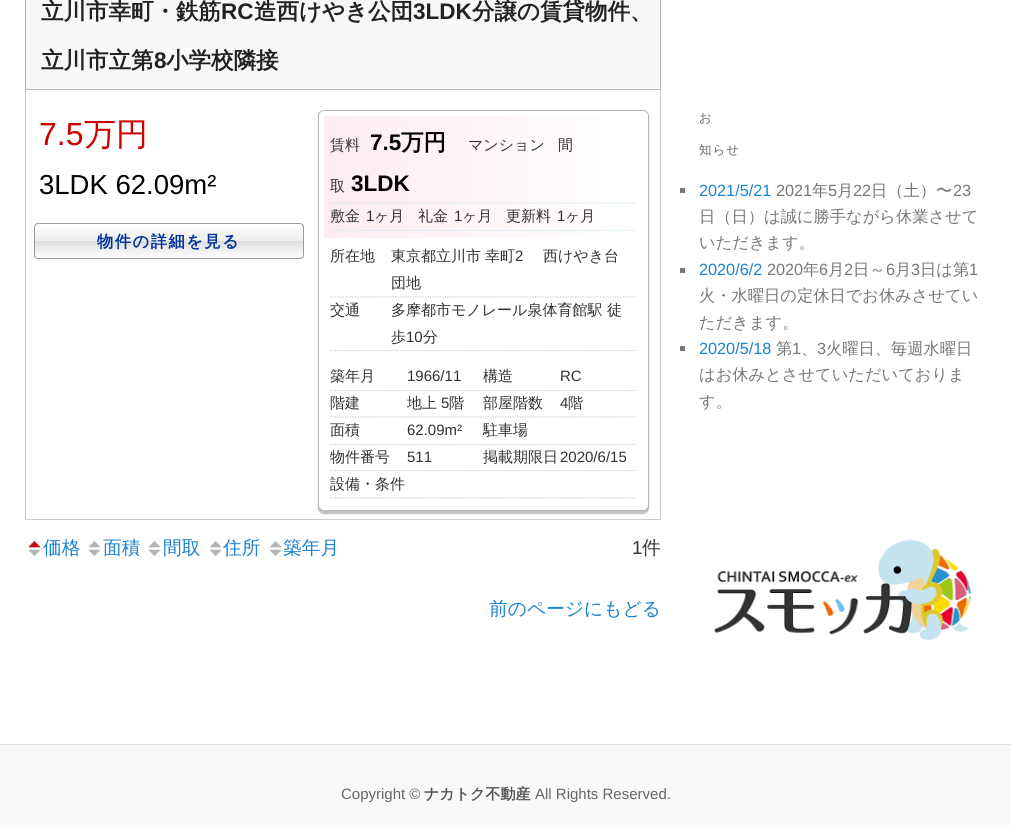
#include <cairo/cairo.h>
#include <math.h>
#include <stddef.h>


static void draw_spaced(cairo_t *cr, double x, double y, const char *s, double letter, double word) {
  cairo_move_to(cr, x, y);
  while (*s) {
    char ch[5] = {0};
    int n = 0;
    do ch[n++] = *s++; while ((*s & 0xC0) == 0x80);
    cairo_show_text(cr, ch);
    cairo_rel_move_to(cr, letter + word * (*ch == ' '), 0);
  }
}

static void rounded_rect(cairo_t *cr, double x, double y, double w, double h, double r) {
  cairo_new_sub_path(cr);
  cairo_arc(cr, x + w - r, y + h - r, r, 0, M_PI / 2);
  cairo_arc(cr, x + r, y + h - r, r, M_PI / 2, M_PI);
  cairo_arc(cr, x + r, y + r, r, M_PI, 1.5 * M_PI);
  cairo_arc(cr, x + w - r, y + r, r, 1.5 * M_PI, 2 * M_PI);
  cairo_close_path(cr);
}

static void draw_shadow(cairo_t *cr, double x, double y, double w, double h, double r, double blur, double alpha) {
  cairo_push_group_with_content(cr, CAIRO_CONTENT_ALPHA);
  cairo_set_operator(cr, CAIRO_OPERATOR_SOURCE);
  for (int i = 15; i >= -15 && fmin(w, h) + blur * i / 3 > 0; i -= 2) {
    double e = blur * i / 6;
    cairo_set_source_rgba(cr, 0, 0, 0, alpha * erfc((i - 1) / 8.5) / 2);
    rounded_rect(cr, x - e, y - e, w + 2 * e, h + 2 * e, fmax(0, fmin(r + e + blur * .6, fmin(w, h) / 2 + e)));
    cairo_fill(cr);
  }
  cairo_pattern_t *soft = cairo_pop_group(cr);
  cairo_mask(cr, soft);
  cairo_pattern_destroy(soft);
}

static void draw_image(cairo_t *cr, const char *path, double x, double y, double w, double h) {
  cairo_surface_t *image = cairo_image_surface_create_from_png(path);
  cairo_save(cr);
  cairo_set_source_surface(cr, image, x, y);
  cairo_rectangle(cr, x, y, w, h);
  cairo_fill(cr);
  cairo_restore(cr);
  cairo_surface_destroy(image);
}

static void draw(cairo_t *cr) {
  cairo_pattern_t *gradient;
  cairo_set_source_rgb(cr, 1, 1, 1);
  cairo_paint(cr);
  cairo_set_source_rgb(cr, 183 / 255.0, 183 / 255.0, 183 / 255.0);
  cairo_new_path(cr);
  cairo_move_to(cr, 661, -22);
  cairo_line_to(cr, 661, 90);
  cairo_line_to(cr, 660, 89);
  cairo_line_to(cr, 660, -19);
  cairo_close_path(cr);
  cairo_fill(cr);
  cairo_rectangle(cr, 25, 89, 636, 1);
  cairo_fill(cr);
  cairo_new_path(cr);
  cairo_move_to(cr, 25, 90);
  cairo_line_to(cr, 25, -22);
  cairo_line_to(cr, 26, -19);
  cairo_line_to(cr, 26, 89);
  cairo_close_path(cr);
  cairo_fill(cr);
  cairo_set_source_rgb(cr, 248 / 255.0, 248 / 255.0, 248 / 255.0);
  cairo_rectangle(cr, 26, 0, 634, 89);
  cairo_fill(cr);
  cairo_set_source_rgb(cr, 204 / 255.0, 204 / 255.0, 204 / 255.0);
  cairo_rectangle(cr, 660, 90, 1, 430);
  cairo_fill(cr);
  cairo_rectangle(cr, 25, 519, 636, 1);
  cairo_fill(cr);
  cairo_rectangle(cr, 25, 90, 1, 430);
  cairo_fill(cr);
  cairo_save(cr);
  rounded_rect(cr, 34, 223, 270, 36, 4);
  cairo_clip(cr);
  gradient = cairo_pattern_create_linear(35, 224, 35, 258);
  cairo_pattern_add_color_stop_rgba(gradient, 0, 1, 1, 1, 1);
  cairo_pattern_add_color_stop_rgba(gradient, 0.49, 238 / 255.0, 238 / 255.0, 238 / 255.0, 1);
  cairo_pattern_add_color_stop_rgba(gradient, 0.5, 221 / 255.0, 221 / 255.0, 221 / 255.0, 1);
  cairo_pattern_add_color_stop_rgba(gradient, 1, 1, 1, 1, 1);
  cairo_set_source(cr, gradient);
  cairo_pattern_destroy(gradient);
  cairo_rectangle(cr, 34, 224, 270, 34);
  cairo_fill(cr);
  cairo_restore(cr);
  rounded_rect(cr, 34.5, 223.5, 269, 35, 3.5);
  cairo_set_source_rgb(cr, 153 / 255.0, 153 / 255.0, 153 / 255.0);
  cairo_set_line_width(cr, 1);
  cairo_stroke(cr);
  cairo_set_source_rgb(cr, 190 / 255.0, 194 / 255.0, 198 / 255.0);
  draw_shadow(cr, 318, 113, 331, 401, 6, 0.5, 1);
  cairo_set_source_rgb(cr, 1, 1, 1);
  rounded_rect(cr, 318.5, 110.5, 330, 400, 5.5);
  cairo_fill_preserve(cr);
  cairo_set_source_rgb(cr, 183 / 255.0, 183 / 255.0, 183 / 255.0);
  cairo_stroke(cr);
  gradient = cairo_pattern_create_linear(324, 116, 643, 116);
  cairo_pattern_add_color_stop_rgba(gradient, 0, 253 / 255.0, 237 / 255.0, 240 / 255.0, 1);
  cairo_pattern_add_color_stop_rgba(gradient, 1, 1, 1, 1, 1);
  cairo_set_source(cr, gradient);
  cairo_pattern_destroy(gradient);
  cairo_rectangle(cr, 324, 116, 275, 122);
  cairo_fill(cr);
  cairo_new_path(cr);
  cairo_move_to(cr, 330, 203);
  cairo_line_to(cr, 636, 203);
  cairo_set_source_rgb(cr, 202 / 255.0, 231 / 255.0, 244 / 255.0);
  cairo_set_line_width(cr, 1.2);
  cairo_set_dash(cr, (double[]){1.25, 1.25}, 2, 0);
  cairo_stroke(cr);
  cairo_new_path(cr);
  cairo_move_to(cr, 330, 230.5);
  cairo_line_to(cr, 636, 230.5);
  cairo_stroke(cr);
  cairo_new_path(cr);
  cairo_move_to(cr, 330, 297);
  cairo_line_to(cr, 636, 297);
  cairo_set_source_rgb(cr, 204 / 255.0, 204 / 255.0, 204 / 255.0);
  cairo_stroke(cr);
  cairo_new_path(cr);
  cairo_move_to(cr, 330, 350.5);
  cairo_line_to(cr, 636, 350.5);
  cairo_stroke(cr);
  cairo_new_path(cr);
  cairo_move_to(cr, 330, 390.5);
  cairo_line_to(cr, 636, 390.5);
  cairo_stroke(cr);
  cairo_new_path(cr);
  cairo_move_to(cr, 330, 417);
  cairo_line_to(cr, 636, 417);
  cairo_stroke(cr);
  cairo_new_path(cr);
  cairo_move_to(cr, 330, 444.5);
  cairo_line_to(cr, 636, 444.5);
  cairo_stroke(cr);
  cairo_new_path(cr);
  cairo_move_to(cr, 330, 470.5);
  cairo_line_to(cr, 636, 470.5);
  cairo_stroke(cr);
  cairo_new_path(cr);
  cairo_move_to(cr, 330, 498);
  cairo_line_to(cr, 636, 498);
  cairo_stroke(cr);
  draw_image(cr, "images/1.png", 28, 541, 13, 15);
  draw_image(cr, "images/2.png", 88, 541, 13, 15);
  draw_image(cr, "images/2.png", 148, 541, 13, 15);
  draw_image(cr, "images/3.png", 209, 541, 13, 15);
  draw_image(cr, "images/3.png", 269, 541, 13, 15);
  cairo_set_source_rgb(cr, 119 / 255.0, 119 / 255.0, 119 / 255.0);
  cairo_rectangle(cr, 680, 188, 5, 5);
  cairo_fill(cr);
  cairo_rectangle(cr, 680, 268, 5, 5);
  cairo_fill(cr);
  cairo_rectangle(cr, 680, 346, 5, 5);
  cairo_fill(cr);
  draw_image(cr, "images/4.png", 714, 539, 258, 102);
  cairo_set_source_rgb(cr, 249 / 255.0, 249 / 255.0, 249 / 255.0);
  cairo_rectangle(cr, 0, 745, 1011, 80);
  cairo_fill(cr);
  cairo_set_source_rgb(cr, 221 / 255.0, 221 / 255.0, 221 / 255.0);
  cairo_rectangle(cr, 0, 744, 1011, 1);
  cairo_fill(cr);
  cairo_select_font_face(cr, "WenQuanYi Zen Hei", CAIRO_FONT_SLANT_NORMAL, CAIRO_FONT_WEIGHT_BOLD);
  cairo_set_font_size(cr, 22.5);
  cairo_set_source_rgb(cr, 34 / 255.0, 34 / 255.0, 34 / 255.0);
  cairo_move_to(cr, 41, 19);
  cairo_show_text(cr, "立川市幸町・鉄筋");
  cairo_select_font_face(cr, "Liberation Sans", CAIRO_FONT_SLANT_NORMAL, CAIRO_FONT_WEIGHT_BOLD);
  cairo_move_to(cr, 221, 19);
  cairo_show_text(cr, "RC");
  cairo_select_font_face(cr, "WenQuanYi Zen Hei", CAIRO_FONT_SLANT_NORMAL, CAIRO_FONT_WEIGHT_BOLD);
  cairo_move_to(cr, 254, 19);
  cairo_show_text(cr, "造西けやき公団");
  cairo_select_font_face(cr, "Liberation Sans", CAIRO_FONT_SLANT_NORMAL, CAIRO_FONT_WEIGHT_BOLD);
  cairo_move_to(cr, 413, 19);
  cairo_show_text(cr, "3LDK");
  cairo_select_font_face(cr, "WenQuanYi Zen Hei", CAIRO_FONT_SLANT_NORMAL, CAIRO_FONT_WEIGHT_BOLD);
  cairo_move_to(cr, 472, 19);
  cairo_show_text(cr, "分譲の賃貸物件、");
  cairo_move_to(cr, 41, 68);
  cairo_show_text(cr, "立川市立第");
  cairo_select_font_face(cr, "Liberation Sans", CAIRO_FONT_SLANT_NORMAL, CAIRO_FONT_WEIGHT_BOLD);
  cairo_move_to(cr, 154, 68);
  cairo_show_text(cr, "8");
  cairo_select_font_face(cr, "WenQuanYi Zen Hei", CAIRO_FONT_SLANT_NORMAL, CAIRO_FONT_WEIGHT_BOLD);
  cairo_move_to(cr, 166, 68);
  cairo_show_text(cr, "小学校隣接");
  cairo_select_font_face(cr, "Liberation Sans", CAIRO_FONT_SLANT_NORMAL, CAIRO_FONT_WEIGHT_NORMAL);
  cairo_set_font_size(cr, 32);
  cairo_set_source_rgb(cr, 204 / 255.0, 0, 0);
  cairo_move_to(cr, 39, 145);
  cairo_show_text(cr, "7.5");
  cairo_select_font_face(cr, "WenQuanYi Zen Hei Medium", CAIRO_FONT_SLANT_NORMAL, CAIRO_FONT_WEIGHT_NORMAL);
  cairo_move_to(cr, 84, 145);
  cairo_show_text(cr, "万円");
  cairo_select_font_face(cr, "Liberation Sans", CAIRO_FONT_SLANT_NORMAL, CAIRO_FONT_WEIGHT_NORMAL);
  cairo_set_font_size(cr, 27.5);
  cairo_set_source_rgb(cr, 0, 0, 0);
  cairo_move_to(cr, 39, 194);
  cairo_show_text(cr, "3LDK 62.09m²");
  cairo_select_font_face(cr, "WenQuanYi Zen Hei", CAIRO_FONT_SLANT_NORMAL, CAIRO_FONT_WEIGHT_BOLD);
  cairo_set_font_size(cr, 16.25);
  cairo_set_source_rgb(cr, 0, 50 / 255.0, 155 / 255.0);
  draw_spaced(cr, 97, 247, "物件の詳細を見る", 1.5, 0);
  cairo_select_font_face(cr, "WenQuanYi Zen Hei Medium", CAIRO_FONT_SLANT_NORMAL, CAIRO_FONT_WEIGHT_NORMAL);
  cairo_set_font_size(cr, 15);
  cairo_set_source_rgb(cr, 51 / 255.0, 51 / 255.0, 51 / 255.0);
  cairo_move_to(cr, 330, 150);
  cairo_show_text(cr, "賃料");
  cairo_select_font_face(cr, "Liberation Sans", CAIRO_FONT_SLANT_NORMAL, CAIRO_FONT_WEIGHT_BOLD);
  cairo_set_font_size(cr, 22.5);
  cairo_set_source_rgb(cr, 0, 0, 0);
  cairo_move_to(cr, 370, 150);
  cairo_show_text(cr, "7.5");
  cairo_select_font_face(cr, "WenQuanYi Zen Hei", CAIRO_FONT_SLANT_NORMAL, CAIRO_FONT_WEIGHT_BOLD);
  cairo_move_to(cr, 401, 150);
  cairo_show_text(cr, "万円");
  cairo_select_font_face(cr, "WenQuanYi Zen Hei Medium", CAIRO_FONT_SLANT_NORMAL, CAIRO_FONT_WEIGHT_NORMAL);
  cairo_set_font_size(cr, 15);
  cairo_set_source_rgb(cr, 51 / 255.0, 51 / 255.0, 51 / 255.0);
  cairo_move_to(cr, 468, 150);
  cairo_show_text(cr, "マンション");
  cairo_move_to(cr, 558, 150);
  cairo_show_text(cr, "間");
  cairo_move_to(cr, 330, 191);
  cairo_show_text(cr, "取");
  cairo_select_font_face(cr, "Liberation Sans", CAIRO_FONT_SLANT_NORMAL, CAIRO_FONT_WEIGHT_BOLD);
  cairo_set_font_size(cr, 22.5);
  cairo_set_source_rgb(cr, 0, 0, 0);
  cairo_move_to(cr, 351, 191);
  cairo_show_text(cr, "3LDK");
  cairo_select_font_face(cr, "WenQuanYi Zen Hei Medium", CAIRO_FONT_SLANT_NORMAL, CAIRO_FONT_WEIGHT_NORMAL);
  cairo_set_font_size(cr, 15);
  cairo_set_source_rgb(cr, 51 / 255.0, 51 / 255.0, 51 / 255.0);
  cairo_move_to(cr, 330, 221);
  cairo_show_text(cr, "敷金");
  cairo_select_font_face(cr, "Liberation Sans", CAIRO_FONT_SLANT_NORMAL, CAIRO_FONT_WEIGHT_NORMAL);
  cairo_move_to(cr, 366, 221);
  cairo_show_text(cr, "1");
  cairo_select_font_face(cr, "WenQuanYi Zen Hei Medium", CAIRO_FONT_SLANT_NORMAL, CAIRO_FONT_WEIGHT_NORMAL);
  cairo_move_to(cr, 374, 221);
  cairo_show_text(cr, "ヶ月");
  cairo_move_to(cr, 418, 221);
  cairo_show_text(cr, "礼金");
  cairo_select_font_face(cr, "Liberation Sans", CAIRO_FONT_SLANT_NORMAL, CAIRO_FONT_WEIGHT_NORMAL);
  cairo_move_to(cr, 454, 221);
  cairo_show_text(cr, "1");
  cairo_select_font_face(cr, "WenQuanYi Zen Hei Medium", CAIRO_FONT_SLANT_NORMAL, CAIRO_FONT_WEIGHT_NORMAL);
  cairo_move_to(cr, 462, 221);
  cairo_show_text(cr, "ヶ月");
  cairo_move_to(cr, 506, 221);
  cairo_show_text(cr, "更新料");
  cairo_select_font_face(cr, "Liberation Sans", CAIRO_FONT_SLANT_NORMAL, CAIRO_FONT_WEIGHT_NORMAL);
  cairo_move_to(cr, 557, 221);
  cairo_show_text(cr, "1");
  cairo_select_font_face(cr, "WenQuanYi Zen Hei Medium", CAIRO_FONT_SLANT_NORMAL, CAIRO_FONT_WEIGHT_NORMAL);
  cairo_move_to(cr, 565, 221);
  cairo_show_text(cr, "ヶ月");
  cairo_move_to(cr, 330, 261);
  cairo_show_text(cr, "所在地");
  cairo_move_to(cr, 391, 261);
  cairo_show_text(cr, "東京都立川市");
  cairo_move_to(cr, 485, 261);
  cairo_show_text(cr, "幸町");
  cairo_select_font_face(cr, "Liberation Sans", CAIRO_FONT_SLANT_NORMAL, CAIRO_FONT_WEIGHT_NORMAL);
  cairo_move_to(cr, 515, 261);
  cairo_show_text(cr, "2");
  cairo_select_font_face(cr, "WenQuanYi Zen Hei Medium", CAIRO_FONT_SLANT_NORMAL, CAIRO_FONT_WEIGHT_NORMAL);
  cairo_move_to(cr, 543, 261);
  cairo_show_text(cr, "西けやき台");
  cairo_move_to(cr, 391, 288);
  cairo_show_text(cr, "団地");
  cairo_move_to(cr, 330, 315);
  cairo_show_text(cr, "交通");
  cairo_move_to(cr, 391, 315);
  cairo_show_text(cr, "多摩都市モノレール泉体育館駅 徒");
  cairo_move_to(cr, 391, 342);
  cairo_show_text(cr, "歩");
  cairo_select_font_face(cr, "Liberation Sans", CAIRO_FONT_SLANT_NORMAL, CAIRO_FONT_WEIGHT_NORMAL);
  cairo_move_to(cr, 406, 342);
  cairo_show_text(cr, "10");
  cairo_select_font_face(cr, "WenQuanYi Zen Hei Medium", CAIRO_FONT_SLANT_NORMAL, CAIRO_FONT_WEIGHT_NORMAL);
  cairo_move_to(cr, 423, 342);
  cairo_show_text(cr, "分");
  cairo_move_to(cr, 330, 381);
  cairo_show_text(cr, "築年月");
  cairo_select_font_face(cr, "Liberation Sans", CAIRO_FONT_SLANT_NORMAL, CAIRO_FONT_WEIGHT_NORMAL);
  cairo_move_to(cr, 407, 381);
  cairo_show_text(cr, "1966/11");
  cairo_select_font_face(cr, "WenQuanYi Zen Hei Medium", CAIRO_FONT_SLANT_NORMAL, CAIRO_FONT_WEIGHT_NORMAL);
  cairo_move_to(cr, 483, 381);
  cairo_show_text(cr, "構造");
  cairo_select_font_face(cr, "Liberation Sans", CAIRO_FONT_SLANT_NORMAL, CAIRO_FONT_WEIGHT_NORMAL);
  cairo_move_to(cr, 560, 381);
  cairo_show_text(cr, "RC");
  cairo_select_font_face(cr, "WenQuanYi Zen Hei Medium", CAIRO_FONT_SLANT_NORMAL, CAIRO_FONT_WEIGHT_NORMAL);
  cairo_move_to(cr, 330, 408);
  cairo_show_text(cr, "階建");
  cairo_move_to(cr, 407, 408);
  cairo_show_text(cr, "地上");
  cairo_select_font_face(cr, "Liberation Sans", CAIRO_FONT_SLANT_NORMAL, CAIRO_FONT_WEIGHT_NORMAL);
  cairo_move_to(cr, 441, 408);
  cairo_show_text(cr, "5");
  cairo_select_font_face(cr, "WenQuanYi Zen Hei Medium", CAIRO_FONT_SLANT_NORMAL, CAIRO_FONT_WEIGHT_NORMAL);
  cairo_move_to(cr, 449, 408);
  cairo_show_text(cr, "階");
  cairo_move_to(cr, 483, 408);
  cairo_show_text(cr, "部屋階数");
  cairo_select_font_face(cr, "Liberation Sans", CAIRO_FONT_SLANT_NORMAL, CAIRO_FONT_WEIGHT_NORMAL);
  cairo_move_to(cr, 560, 408);
  cairo_show_text(cr, "4");
  cairo_select_font_face(cr, "WenQuanYi Zen Hei Medium", CAIRO_FONT_SLANT_NORMAL, CAIRO_FONT_WEIGHT_NORMAL);
  cairo_move_to(cr, 568, 408);
  cairo_show_text(cr, "階");
  cairo_move_to(cr, 330, 435);
  cairo_show_text(cr, "面積");
  cairo_select_font_face(cr, "Liberation Sans", CAIRO_FONT_SLANT_NORMAL, CAIRO_FONT_WEIGHT_NORMAL);
  cairo_move_to(cr, 407, 435);
  cairo_show_text(cr, "62.09m²");
  cairo_select_font_face(cr, "WenQuanYi Zen Hei Medium", CAIRO_FONT_SLANT_NORMAL, CAIRO_FONT_WEIGHT_NORMAL);
  cairo_move_to(cr, 483, 435);
  cairo_show_text(cr, "駐車場");
  cairo_move_to(cr, 330, 462);
  cairo_show_text(cr, "物件番号");
  cairo_select_font_face(cr, "Liberation Sans", CAIRO_FONT_SLANT_NORMAL, CAIRO_FONT_WEIGHT_NORMAL);
  cairo_move_to(cr, 407, 462);
  cairo_show_text(cr, "511");
  cairo_select_font_face(cr, "WenQuanYi Zen Hei Medium", CAIRO_FONT_SLANT_NORMAL, CAIRO_FONT_WEIGHT_NORMAL);
  cairo_move_to(cr, 483, 462);
  cairo_show_text(cr, "掲載期限日");
  cairo_select_font_face(cr, "Liberation Sans", CAIRO_FONT_SLANT_NORMAL, CAIRO_FONT_WEIGHT_NORMAL);
  cairo_move_to(cr, 560, 462);
  cairo_show_text(cr, "2020/6/15");
  cairo_select_font_face(cr, "WenQuanYi Zen Hei Medium", CAIRO_FONT_SLANT_NORMAL, CAIRO_FONT_WEIGHT_NORMAL);
  cairo_move_to(cr, 330, 489);
  cairo_show_text(cr, "設備・条件");
  cairo_set_font_size(cr, 18.75);
  cairo_set_source_rgb(cr, 25 / 255.0, 130 / 255.0, 209 / 255.0);
  cairo_move_to(cr, 43, 554);
  cairo_show_text(cr, "価格");
  cairo_move_to(cr, 103, 554);
  cairo_show_text(cr, "面積");
  cairo_move_to(cr, 163, 554);
  cairo_show_text(cr, "間取");
  cairo_move_to(cr, 223, 554);
  cairo_show_text(cr, "住所");
  cairo_move_to(cr, 283, 554);
  cairo_show_text(cr, "築年月");
  cairo_select_font_face(cr, "Liberation Sans", CAIRO_FONT_SLANT_NORMAL, CAIRO_FONT_WEIGHT_NORMAL);
  cairo_set_source_rgb(cr, 51 / 255.0, 51 / 255.0, 51 / 255.0);
  cairo_move_to(cr, 632, 554);
  cairo_show_text(cr, "1");
  cairo_select_font_face(cr, "WenQuanYi Zen Hei Medium", CAIRO_FONT_SLANT_NORMAL, CAIRO_FONT_WEIGHT_NORMAL);
  cairo_move_to(cr, 642, 554);
  cairo_show_text(cr, "件");
  cairo_set_source_rgb(cr, 25 / 255.0, 130 / 255.0, 209 / 255.0);
  cairo_move_to(cr, 489, 615);
  cairo_show_text(cr, "前のページにもどる");
  cairo_set_font_size(cr, 12.5);
  cairo_set_source_rgb(cr, 102 / 255.0, 102 / 255.0, 102 / 255.0);
  draw_spaced(cr, 699, 122, "お", 1, 0);
  draw_spaced(cr, 699, 154, "知らせ", 1, 0);
  cairo_select_font_face(cr, "Liberation Sans", CAIRO_FONT_SLANT_NORMAL, CAIRO_FONT_WEIGHT_NORMAL);
  cairo_set_font_size(cr, 16.25);
  cairo_set_source_rgb(cr, 25 / 255.0, 130 / 255.0, 209 / 255.0);
  cairo_move_to(cr, 699, 196);
  cairo_show_text(cr, "2021/5/21");
  cairo_set_source_rgb(cr, 119 / 255.0, 119 / 255.0, 119 / 255.0);
  cairo_move_to(cr, 776, 196);
  cairo_show_text(cr, "2021");
  cairo_select_font_face(cr, "WenQuanYi Zen Hei Medium", CAIRO_FONT_SLANT_NORMAL, CAIRO_FONT_WEIGHT_NORMAL);
  cairo_move_to(cr, 812, 196);
  cairo_show_text(cr, "年");
  cairo_select_font_face(cr, "Liberation Sans", CAIRO_FONT_SLANT_NORMAL, CAIRO_FONT_WEIGHT_NORMAL);
  cairo_move_to(cr, 828, 196);
  cairo_show_text(cr, "5");
  cairo_select_font_face(cr, "WenQuanYi Zen Hei Medium", CAIRO_FONT_SLANT_NORMAL, CAIRO_FONT_WEIGHT_NORMAL);
  cairo_move_to(cr, 837, 196);
  cairo_show_text(cr, "月");
  cairo_select_font_face(cr, "Liberation Sans", CAIRO_FONT_SLANT_NORMAL, CAIRO_FONT_WEIGHT_NORMAL);
  cairo_move_to(cr, 853, 196);
  cairo_show_text(cr, "22");
  cairo_select_font_face(cr, "WenQuanYi Zen Hei Medium", CAIRO_FONT_SLANT_NORMAL, CAIRO_FONT_WEIGHT_NORMAL);
  cairo_move_to(cr, 871, 196);
  cairo_show_text(cr, "日（土）〜");
  cairo_select_font_face(cr, "Liberation Sans", CAIRO_FONT_SLANT_NORMAL, CAIRO_FONT_WEIGHT_NORMAL);
  cairo_move_to(cr, 953, 196);
  cairo_show_text(cr, "23");
  cairo_select_font_face(cr, "WenQuanYi Zen Hei Medium", CAIRO_FONT_SLANT_NORMAL, CAIRO_FONT_WEIGHT_NORMAL);
  cairo_move_to(cr, 699, 222);
  cairo_show_text(cr, "日（日）は誠に勝手ながら休業させて");
  cairo_move_to(cr, 699, 248);
  cairo_show_text(cr, "いただきます。");
  cairo_select_font_face(cr, "Liberation Sans", CAIRO_FONT_SLANT_NORMAL, CAIRO_FONT_WEIGHT_NORMAL);
  cairo_set_source_rgb(cr, 25 / 255.0, 130 / 255.0, 209 / 255.0);
  cairo_move_to(cr, 699, 275);
  cairo_show_text(cr, "2020/6/2");
  cairo_set_source_rgb(cr, 119 / 255.0, 119 / 255.0, 119 / 255.0);
  cairo_move_to(cr, 767, 275);
  cairo_show_text(cr, "2020");
  cairo_select_font_face(cr, "WenQuanYi Zen Hei Medium", CAIRO_FONT_SLANT_NORMAL, CAIRO_FONT_WEIGHT_NORMAL);
  cairo_move_to(cr, 803, 275);
  cairo_show_text(cr, "年");
  cairo_select_font_face(cr, "Liberation Sans", CAIRO_FONT_SLANT_NORMAL, CAIRO_FONT_WEIGHT_NORMAL);
  cairo_move_to(cr, 819, 275);
  cairo_show_text(cr, "6");
  cairo_select_font_face(cr, "WenQuanYi Zen Hei Medium", CAIRO_FONT_SLANT_NORMAL, CAIRO_FONT_WEIGHT_NORMAL);
  cairo_move_to(cr, 828, 275);
  cairo_show_text(cr, "月");
  cairo_select_font_face(cr, "Liberation Sans", CAIRO_FONT_SLANT_NORMAL, CAIRO_FONT_WEIGHT_NORMAL);
  cairo_move_to(cr, 844, 275);
  cairo_show_text(cr, "2");
  cairo_select_font_face(cr, "WenQuanYi Zen Hei Medium", CAIRO_FONT_SLANT_NORMAL, CAIRO_FONT_WEIGHT_NORMAL);
  cairo_move_to(cr, 853, 275);
  cairo_show_text(cr, "日～");
  cairo_select_font_face(cr, "Liberation Sans", CAIRO_FONT_SLANT_NORMAL, CAIRO_FONT_WEIGHT_NORMAL);
  cairo_move_to(cr, 886, 275);
  cairo_show_text(cr, "6");
  cairo_select_font_face(cr, "WenQuanYi Zen Hei Medium", CAIRO_FONT_SLANT_NORMAL, CAIRO_FONT_WEIGHT_NORMAL);
  cairo_move_to(cr, 895, 275);
  cairo_show_text(cr, "月");
  cairo_select_font_face(cr, "Liberation Sans", CAIRO_FONT_SLANT_NORMAL, CAIRO_FONT_WEIGHT_NORMAL);
  cairo_move_to(cr, 911, 275);
  cairo_show_text(cr, "3");
  cairo_select_font_face(cr, "WenQuanYi Zen Hei Medium", CAIRO_FONT_SLANT_NORMAL, CAIRO_FONT_WEIGHT_NORMAL);
  cairo_move_to(cr, 920, 275);
  cairo_show_text(cr, "日は第");
  cairo_select_font_face(cr, "Liberation Sans", CAIRO_FONT_SLANT_NORMAL, CAIRO_FONT_WEIGHT_NORMAL);
  cairo_move_to(cr, 969, 275);
  cairo_show_text(cr, "1");
  cairo_select_font_face(cr, "WenQuanYi Zen Hei Medium", CAIRO_FONT_SLANT_NORMAL, CAIRO_FONT_WEIGHT_NORMAL);
  cairo_move_to(cr, 699, 301);
  cairo_show_text(cr, "火・水曜日の定休日でお休みさせてい");
  cairo_move_to(cr, 699, 328);
  cairo_show_text(cr, "ただきます。");
  cairo_select_font_face(cr, "Liberation Sans", CAIRO_FONT_SLANT_NORMAL, CAIRO_FONT_WEIGHT_NORMAL);
  cairo_set_source_rgb(cr, 25 / 255.0, 130 / 255.0, 209 / 255.0);
  cairo_move_to(cr, 699, 354);
  cairo_show_text(cr, "2020/5/18");
  cairo_select_font_face(cr, "WenQuanYi Zen Hei Medium", CAIRO_FONT_SLANT_NORMAL, CAIRO_FONT_WEIGHT_NORMAL);
  cairo_set_source_rgb(cr, 119 / 255.0, 119 / 255.0, 119 / 255.0);
  cairo_move_to(cr, 776, 354);
  cairo_show_text(cr, "第");
  cairo_select_font_face(cr, "Liberation Sans", CAIRO_FONT_SLANT_NORMAL, CAIRO_FONT_WEIGHT_NORMAL);
  cairo_move_to(cr, 792, 354);
  cairo_show_text(cr, "1");
  cairo_move_to(cr, 817, 354);
  cairo_show_text(cr, "3");
  cairo_select_font_face(cr, "WenQuanYi Zen Hei Medium", CAIRO_FONT_SLANT_NORMAL, CAIRO_FONT_WEIGHT_NORMAL);
  cairo_move_to(cr, 826, 354);
  cairo_show_text(cr, "火曜日、毎週水曜日");
  cairo_move_to(cr, 801, 354);
  cairo_show_text(cr, "、");
  cairo_move_to(cr, 699, 380);
  cairo_show_text(cr, "はお休みとさせていただいておりま");
  cairo_move_to(cr, 699, 407);
  cairo_show_text(cr, "す。");
  cairo_select_font_face(cr, "Liberation Sans", CAIRO_FONT_SLANT_NORMAL, CAIRO_FONT_WEIGHT_NORMAL);
  cairo_set_font_size(cr, 15);
  cairo_set_source_rgb(cr, 102 / 255.0, 102 / 255.0, 102 / 255.0);
  cairo_move_to(cr, 341, 799);
  cairo_show_text(cr, "Copyright ©");
  cairo_select_font_face(cr, "WenQuanYi Zen Hei", CAIRO_FONT_SLANT_NORMAL, CAIRO_FONT_WEIGHT_BOLD);
  cairo_set_source_rgb(cr, 85 / 255.0, 85 / 255.0, 85 / 255.0);
  cairo_move_to(cr, 424, 799);
  cairo_show_text(cr, "ナカトク不動産");
  cairo_select_font_face(cr, "Liberation Sans", CAIRO_FONT_SLANT_NORMAL, CAIRO_FONT_WEIGHT_NORMAL);
  cairo_set_source_rgb(cr, 102 / 255.0, 102 / 255.0, 102 / 255.0);
  cairo_move_to(cr, 535, 799);
  cairo_show_text(cr, "All Rights Reserved.");
}

int main(void) {
  cairo_surface_t *surface = cairo_image_surface_create(CAIRO_FORMAT_RGB24, 1011, 825);
  cairo_t *cr = cairo_create(surface);
  cairo_font_options_t *options = cairo_font_options_create();
  cairo_font_options_set_hint_metrics(options, CAIRO_HINT_METRICS_OFF);
  cairo_font_options_set_hint_style(options, CAIRO_HINT_STYLE_NONE);
  cairo_set_font_options(cr, options);
  cairo_set_miter_limit(cr, 4);
  draw(cr);
  cairo_surface_write_to_png(surface, "out.png");
  cairo_font_options_destroy(options);
  cairo_destroy(cr);
  cairo_surface_destroy(surface);
  return 0;
}
